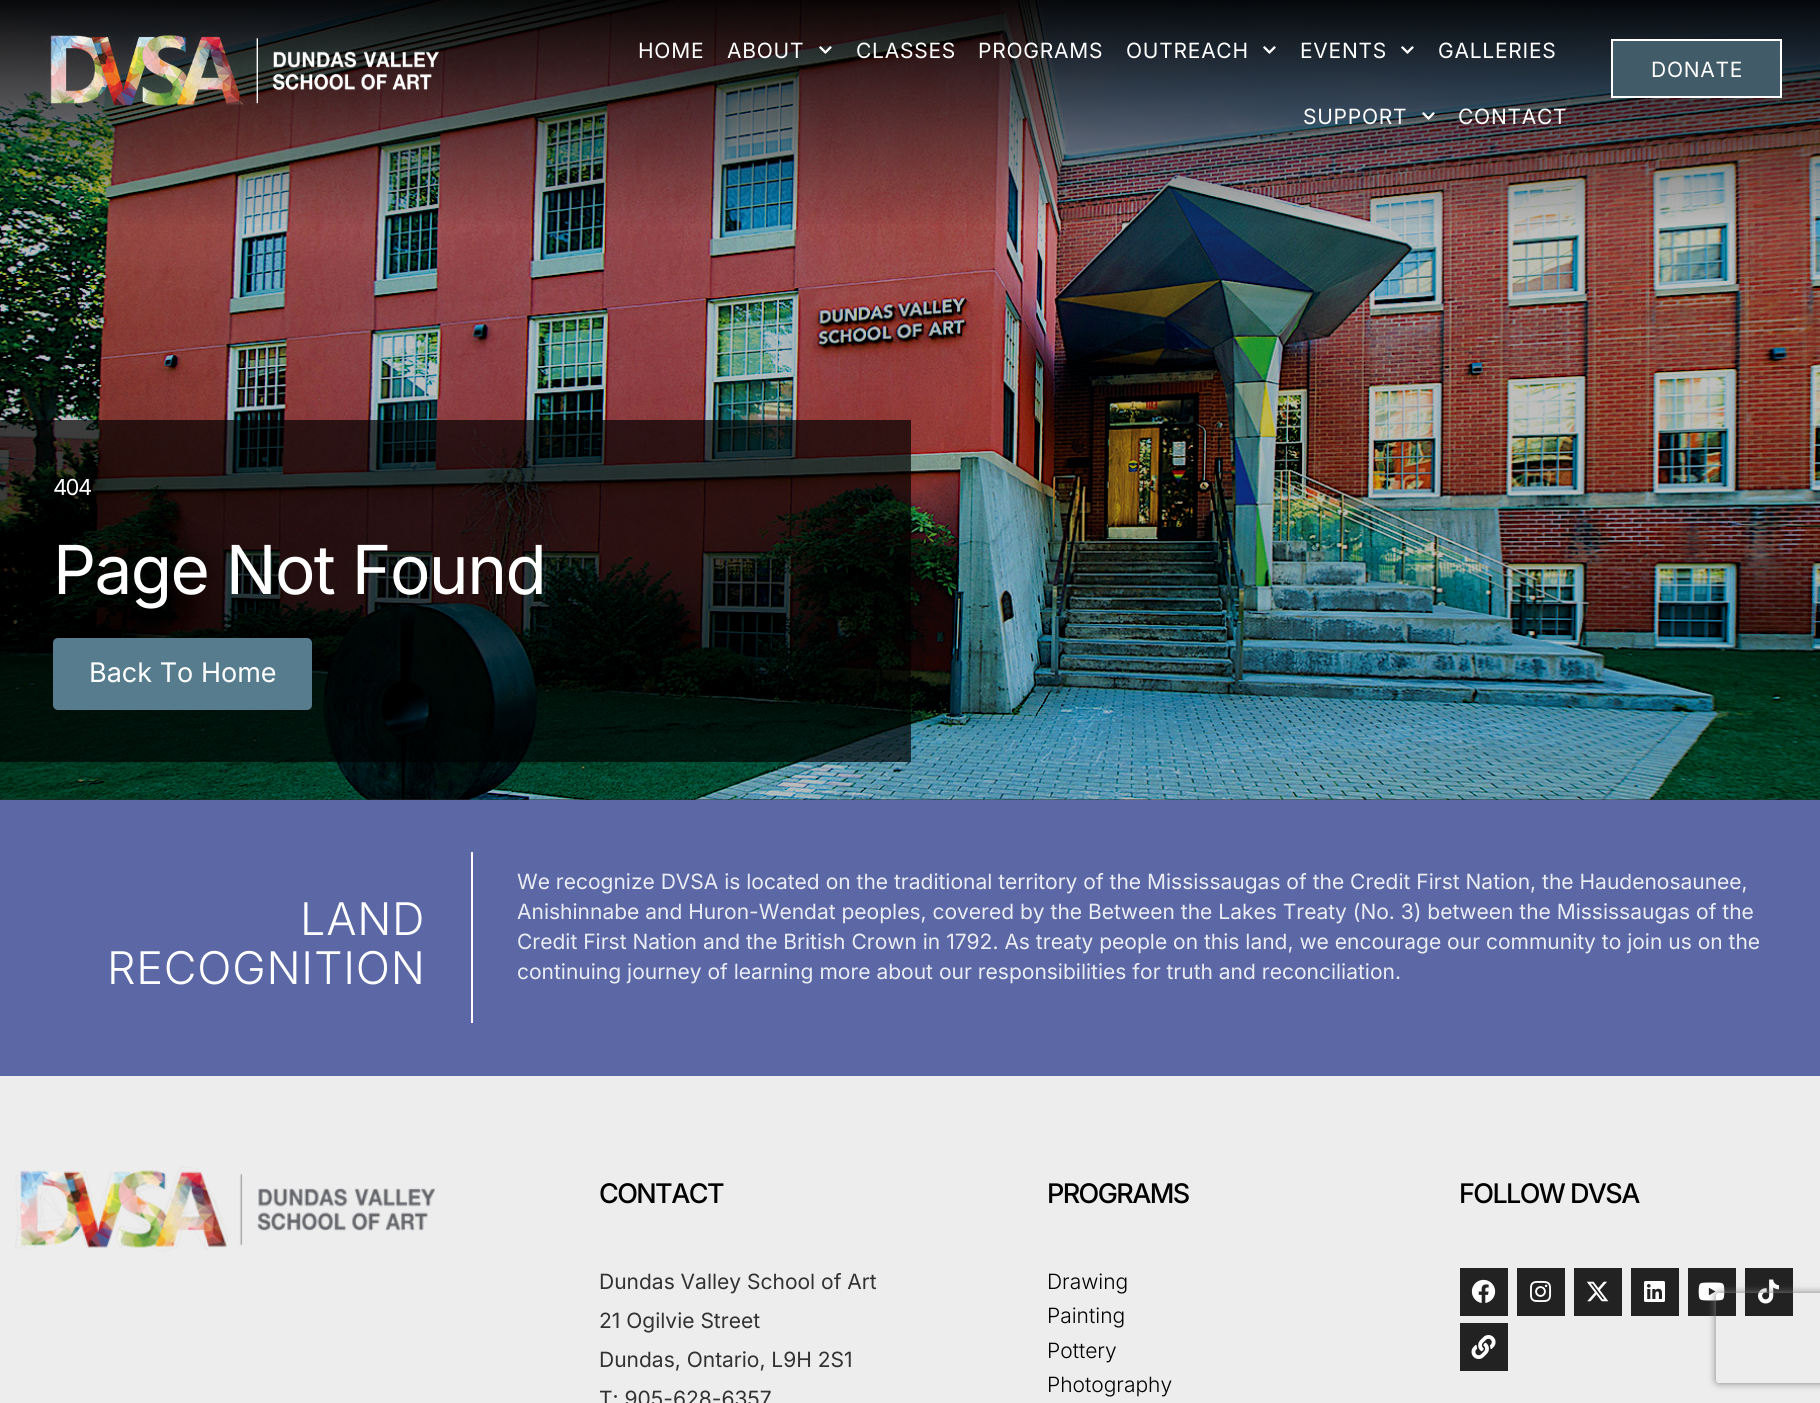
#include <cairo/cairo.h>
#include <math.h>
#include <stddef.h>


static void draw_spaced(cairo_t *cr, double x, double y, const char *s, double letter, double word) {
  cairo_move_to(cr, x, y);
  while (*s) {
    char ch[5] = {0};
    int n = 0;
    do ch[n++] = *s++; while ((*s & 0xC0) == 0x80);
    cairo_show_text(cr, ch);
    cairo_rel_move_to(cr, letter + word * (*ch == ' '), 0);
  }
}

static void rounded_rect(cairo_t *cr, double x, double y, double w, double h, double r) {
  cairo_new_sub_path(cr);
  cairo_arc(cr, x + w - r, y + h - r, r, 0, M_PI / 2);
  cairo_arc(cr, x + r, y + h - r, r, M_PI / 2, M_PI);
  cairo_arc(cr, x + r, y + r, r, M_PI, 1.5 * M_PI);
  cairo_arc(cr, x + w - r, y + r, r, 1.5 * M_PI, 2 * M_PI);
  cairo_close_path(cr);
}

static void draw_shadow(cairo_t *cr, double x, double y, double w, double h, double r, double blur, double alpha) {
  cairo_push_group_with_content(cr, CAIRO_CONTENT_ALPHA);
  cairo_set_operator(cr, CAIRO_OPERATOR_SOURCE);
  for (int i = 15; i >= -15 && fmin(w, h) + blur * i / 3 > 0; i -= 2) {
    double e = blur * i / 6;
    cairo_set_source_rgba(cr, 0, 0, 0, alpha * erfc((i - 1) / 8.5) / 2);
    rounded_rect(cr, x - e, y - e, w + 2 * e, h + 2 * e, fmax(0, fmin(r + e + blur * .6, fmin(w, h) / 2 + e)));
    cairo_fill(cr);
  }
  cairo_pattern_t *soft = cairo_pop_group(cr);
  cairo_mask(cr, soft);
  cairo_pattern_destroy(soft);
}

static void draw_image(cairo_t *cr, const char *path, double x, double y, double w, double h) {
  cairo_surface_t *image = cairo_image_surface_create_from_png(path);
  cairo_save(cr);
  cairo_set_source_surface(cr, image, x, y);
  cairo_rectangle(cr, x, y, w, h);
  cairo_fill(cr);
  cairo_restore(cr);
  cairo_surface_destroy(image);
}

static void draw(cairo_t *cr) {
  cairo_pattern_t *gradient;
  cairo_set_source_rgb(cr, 41 / 255.0, 41 / 255.0, 41 / 255.0);
  cairo_paint(cr);
  draw_image(cr, "images/6.png", 0, 0, 1820, 800);
  gradient = cairo_pattern_create_linear(911, -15, 911, 800);
  cairo_pattern_add_color_stop_rgba(gradient, 0, 0, 0, 0, 1);
  cairo_pattern_add_color_stop_rgba(gradient, 0.3, 0, 0, 0, 0);
  cairo_set_source(cr, gradient);
  cairo_pattern_destroy(gradient);
  cairo_rectangle(cr, 0, 0, 1820, 224);
  cairo_fill(cr);
  draw_image(cr, "images/1.png", 45, 30, 394, 80);
  draw_image(cr, "images/2.png", 819, 46, 13, 8);
  draw_image(cr, "images/3.png", 1263, 46, 13, 8);
  draw_image(cr, "images/4.png", 1401, 46, 13, 8);
  draw_image(cr, "images/5.png", 1422, 112, 13, 8);
  cairo_set_source_rgb(cr, 65 / 255.0, 92 / 255.0, 104 / 255.0);
  cairo_rectangle(cr, 1612, 40, 169, 57);
  cairo_fill_preserve(cr);
  cairo_set_source_rgb(cr, 1, 1, 1);
  cairo_stroke(cr);
  cairo_set_source_rgba(cr, 0, 0, 0, 0.68);
  cairo_rectangle(cr, 0, 420, 911, 342);
  cairo_fill(cr);
  cairo_set_source_rgb(cr, 86 / 255.0, 124 / 255.0, 141 / 255.0);
  rounded_rect(cr, 53, 638, 259, 72, 5);
  cairo_fill(cr);
  cairo_set_source_rgb(cr, 91 / 255.0, 104 / 255.0, 165 / 255.0);
  cairo_rectangle(cr, 0, 800, 1820, 276);
  cairo_fill(cr);
  cairo_set_source_rgb(cr, 1, 1, 1);
  cairo_rectangle(cr, 471, 852, 2, 171);
  cairo_fill(cr);
  cairo_set_source_rgb(cr, 237 / 255.0, 237 / 255.0, 237 / 255.0);
  cairo_rectangle(cr, 0, 1076, 1820, 327);
  cairo_fill(cr);
  draw_image(cr, "images/7.png", 15, 1166, 420, 86);
  cairo_set_source_rgb(cr, 34 / 255.0, 34 / 255.0, 34 / 255.0);
  cairo_rectangle(cr, 1460, 1268, 48, 48);
  cairo_fill(cr);
  draw_image(cr, "images/8.png", 1471, 1279, 25, 24);
  cairo_rectangle(cr, 1517, 1268, 48, 48);
  cairo_fill(cr);
  draw_image(cr, "images/9.png", 1530, 1280, 22, 22);
  cairo_rectangle(cr, 1574, 1268, 48, 48);
  cairo_fill(cr);
  draw_image(cr, "images/10.png", 1586, 1281, 23, 21);
  cairo_rectangle(cr, 1631, 1268, 48, 48);
  cairo_fill(cr);
  draw_image(cr, "images/11.png", 1644, 1281, 21, 21);
  cairo_rectangle(cr, 1688, 1268, 48, 48);
  cairo_fill(cr);
  draw_image(cr, "images/12.png", 1698, 1282, 27, 19);
  cairo_rectangle(cr, 1745, 1268, 48, 48);
  cairo_fill(cr);
  draw_image(cr, "images/13.png", 1758, 1279, 21, 25);
  cairo_rectangle(cr, 1460, 1323, 48, 48);
  cairo_fill(cr);
  draw_image(cr, "images/14.png", 1471, 1335, 25, 24);
  cairo_save(cr);
  cairo_set_fill_rule(cr, CAIRO_FILL_RULE_EVEN_ODD);
  cairo_new_path(cr);
  cairo_move_to(cr, 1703, 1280);
  cairo_line_to(cr, 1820, 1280);
  cairo_line_to(cr, 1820, 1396);
  cairo_line_to(cr, 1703, 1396);
  cairo_close_path(cr);
  cairo_move_to(cr, 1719, 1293);
  cairo_line_to(cr, 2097, 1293);
  cairo_curve_to(cr, 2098.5, 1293, 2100, 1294.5, 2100, 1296);
  cairo_line_to(cr, 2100, 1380);
  cairo_curve_to(cr, 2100, 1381.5, 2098.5, 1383, 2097, 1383);
  cairo_line_to(cr, 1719, 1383);
  cairo_curve_to(cr, 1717.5, 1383, 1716, 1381.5, 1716, 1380);
  cairo_line_to(cr, 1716, 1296);
  cairo_curve_to(cr, 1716, 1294.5, 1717.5, 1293, 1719, 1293);
  cairo_close_path(cr);
  cairo_clip(cr);
  cairo_set_source_rgb(cr, 128 / 255.0, 128 / 255.0, 128 / 255.0);
  draw_shadow(cr, 1716, 1293, 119, 90, 3, 4, 1);
  cairo_restore(cr);
  cairo_select_font_face(cr, "Inter", CAIRO_FONT_SLANT_NORMAL, CAIRO_FONT_WEIGHT_NORMAL);
  cairo_set_font_size(cr, 21);
  cairo_set_source_rgb(cr, 1, 1, 1);
  draw_spaced(cr, 638, 58, "HOME", 0.75, 0);
  draw_spaced(cr, 727, 58, "ABOUT", 0.75, 0);
  draw_spaced(cr, 856, 58, "CLASSES", 0.75, 0);
  draw_spaced(cr, 978, 58, "PROGRAMS", 0.75, 0);
  draw_spaced(cr, 1126, 58, "OUTREACH", 0.75, 0);
  draw_spaced(cr, 1300, 58, "EVENTS", 0.75, 0);
  draw_spaced(cr, 1438, 58, "GALLERIES", 0.75, 0);
  draw_spaced(cr, 1303, 124, "SUPPORT", 0.75, 0);
  draw_spaced(cr, 1458, 124, "CONTACT", 0.75, 0);
  draw_spaced(cr, 1651, 77, "DONATE", 0.75, 0);
  cairo_set_font_size(cr, 22);
  draw_spaced(cr, 53, 495, "404", -1.6, 0);
  cairo_set_font_size(cr, 67.5);
  draw_spaced(cr, 53, 594, "Page Not Found", -1.6, 0);
  cairo_set_font_size(cr, 27);
  cairo_move_to(cr, 89, 682);
  cairo_show_text(cr, "Back To Home");
  cairo_select_font_face(cr, "Inter Light", CAIRO_FONT_SLANT_NORMAL, CAIRO_FONT_WEIGHT_NORMAL);
  cairo_set_font_size(cr, 45);
  draw_spaced(cr, 300, 935, "LAND", 0.75, 0);
  draw_spaced(cr, 107, 984, "RECOGNITION", 0.75, 0);
  cairo_select_font_face(cr, "Inter", CAIRO_FONT_SLANT_NORMAL, CAIRO_FONT_WEIGHT_NORMAL);
  cairo_set_font_size(cr, 21);
  cairo_set_source_rgb(cr, 235 / 255.0, 237 / 255.0, 244 / 255.0);
  cairo_move_to(cr, 517, 889);
  cairo_show_text(cr, "We recognize DVSA is located on the traditional territory of the Mississaugas of the Credit First Nation, the Haudenosaunee,");
  cairo_move_to(cr, 517, 919);
  cairo_show_text(cr, "Anishinnabe and Huron-Wendat peoples, covered by the Between the Lakes Treaty (No. 3) between the Mississaugas of the");
  cairo_move_to(cr, 517, 949);
  cairo_show_text(cr, "Credit First Nation and the British Crown in 1792. As treaty people on this land, we encourage our community to join us on the");
  cairo_move_to(cr, 517, 979);
  cairo_show_text(cr, "continuing journey of learning more about our responsibilities for truth and reconciliation.");
  cairo_select_font_face(cr, "Inter Medium", CAIRO_FONT_SLANT_NORMAL, CAIRO_FONT_WEIGHT_NORMAL);
  cairo_set_font_size(cr, 27);
  cairo_set_source_rgb(cr, 0, 0, 0);
  draw_spaced(cr, 599, 1203, "CONTACT", -1.6, 0);
  cairo_select_font_face(cr, "Inter", CAIRO_FONT_SLANT_NORMAL, CAIRO_FONT_WEIGHT_NORMAL);
  cairo_set_font_size(cr, 21);
  cairo_set_source_rgb(cr, 50 / 255.0, 50 / 255.0, 50 / 255.0);
  cairo_move_to(cr, 599, 1289);
  cairo_show_text(cr, "Dundas Valley School of Art");
  cairo_move_to(cr, 599, 1328);
  cairo_show_text(cr, "21 Ogilvie Street");
  cairo_move_to(cr, 599, 1367);
  cairo_show_text(cr, "Dundas, Ontario, L9H 2S1");
  cairo_move_to(cr, 599, 1406);
  cairo_show_text(cr, "T: 905-628-6357");
  cairo_select_font_face(cr, "Inter Medium", CAIRO_FONT_SLANT_NORMAL, CAIRO_FONT_WEIGHT_NORMAL);
  cairo_set_font_size(cr, 27);
  cairo_set_source_rgb(cr, 0, 0, 0);
  draw_spaced(cr, 1047, 1203, "PROGRAMS", -1.6, 0);
  cairo_select_font_face(cr, "Inter Light", CAIRO_FONT_SLANT_NORMAL, CAIRO_FONT_WEIGHT_NORMAL);
  cairo_set_font_size(cr, 21);
  cairo_move_to(cr, 1047, 1289);
  cairo_show_text(cr, "Drawing");
  cairo_move_to(cr, 1047, 1323);
  cairo_show_text(cr, "Painting");
  cairo_move_to(cr, 1047, 1358);
  cairo_show_text(cr, "Pottery");
  cairo_move_to(cr, 1047, 1392);
  cairo_show_text(cr, "Photography");
  cairo_select_font_face(cr, "Inter Medium", CAIRO_FONT_SLANT_NORMAL, CAIRO_FONT_WEIGHT_NORMAL);
  cairo_set_font_size(cr, 27);
  draw_spaced(cr, 1459, 1203, "FOLLOW DVSA", -1.6, 0);
}

int main(void) {
  cairo_surface_t *surface = cairo_image_surface_create(CAIRO_FORMAT_RGB24, 1820, 1403);
  cairo_t *cr = cairo_create(surface);
  cairo_font_options_t *options = cairo_font_options_create();
  cairo_font_options_set_hint_metrics(options, CAIRO_HINT_METRICS_OFF);
  cairo_font_options_set_hint_style(options, CAIRO_HINT_STYLE_NONE);
  cairo_set_font_options(cr, options);
  cairo_set_miter_limit(cr, 4);
  draw(cr);
  cairo_surface_write_to_png(surface, "out.png");
  cairo_font_options_destroy(options);
  cairo_destroy(cr);
  cairo_surface_destroy(surface);
  return 0;
}
